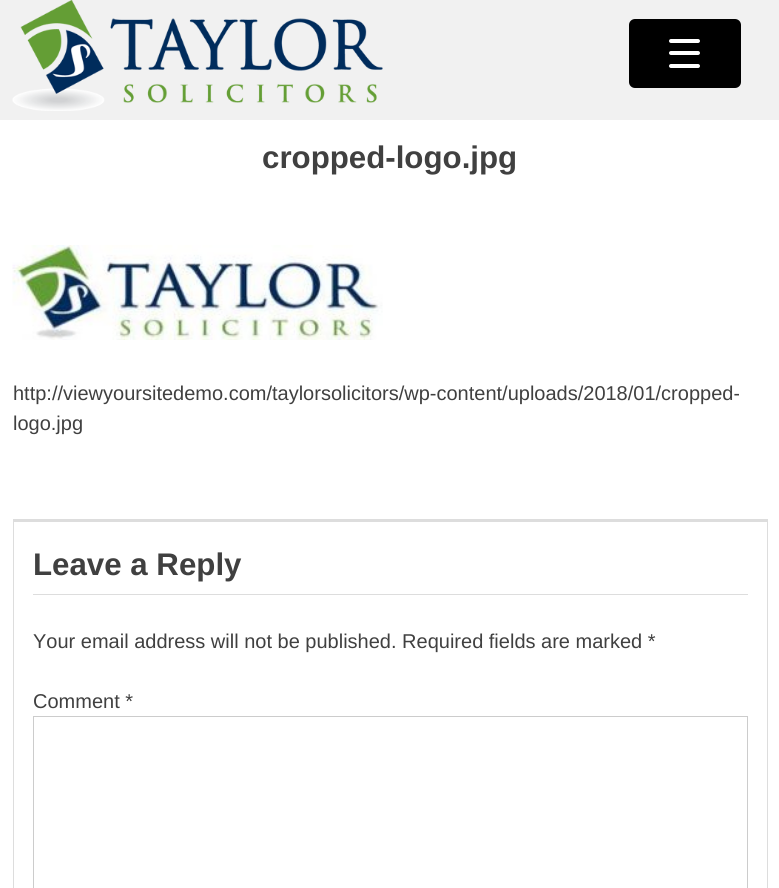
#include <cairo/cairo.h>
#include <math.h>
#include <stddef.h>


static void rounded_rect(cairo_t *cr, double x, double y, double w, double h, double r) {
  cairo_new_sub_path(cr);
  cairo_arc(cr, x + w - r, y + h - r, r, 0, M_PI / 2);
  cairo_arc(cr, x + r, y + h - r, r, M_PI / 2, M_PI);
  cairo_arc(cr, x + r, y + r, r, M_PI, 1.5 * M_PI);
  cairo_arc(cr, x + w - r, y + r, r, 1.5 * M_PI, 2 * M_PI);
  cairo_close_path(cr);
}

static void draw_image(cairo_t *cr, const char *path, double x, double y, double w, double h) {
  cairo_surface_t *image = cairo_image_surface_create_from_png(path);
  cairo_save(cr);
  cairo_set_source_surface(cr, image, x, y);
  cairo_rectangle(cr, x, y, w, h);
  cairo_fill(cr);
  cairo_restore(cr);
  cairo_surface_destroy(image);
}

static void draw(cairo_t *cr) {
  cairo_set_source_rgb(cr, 1, 1, 1);
  cairo_paint(cr);
  cairo_set_source_rgb(cr, 241 / 255.0, 241 / 255.0, 241 / 255.0);
  cairo_rectangle(cr, 0, 0, 779, 120);
  cairo_fill(cr);
  cairo_set_source_rgb(cr, 0, 0, 0);
  rounded_rect(cr, 629, 19, 112, 69, 6);
  cairo_fill(cr);
  cairo_set_source_rgb(cr, 1, 1, 1);
  rounded_rect(cr, 669, 51, 31, 4, 2);
  cairo_fill(cr);
  rounded_rect(cr, 669, 39, 31, 4, 2);
  cairo_fill(cr);
  rounded_rect(cr, 669, 64, 31, 4, 2);
  cairo_fill(cr);
  draw_image(cr, "images/1.png", 12, 0, 371, 111);
  draw_image(cr, "images/2.png", 12, 245, 371, 95);
  cairo_set_source_rgb(cr, 221 / 255.0, 221 / 255.0, 221 / 255.0);
  cairo_rectangle(cr, 13, 519, 755, 2);
  cairo_fill(cr);
  cairo_rectangle(cr, 13.5, 521.5, 754, 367);
  cairo_set_line_width(cr, 1);
  cairo_stroke(cr);
  cairo_rectangle(cr, 33, 594, 715, 1);
  cairo_fill(cr);
  cairo_rectangle(cr, 33.5, 716.5, 714, 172);
  cairo_set_source_rgb(cr, 204 / 255.0, 204 / 255.0, 204 / 255.0);
  cairo_stroke(cr);
  cairo_select_font_face(cr, "Liberation Sans", CAIRO_FONT_SLANT_NORMAL, CAIRO_FONT_WEIGHT_BOLD);
  cairo_set_font_size(cr, 31.25);
  cairo_set_source_rgb(cr, 64 / 255.0, 64 / 255.0, 64 / 255.0);
  cairo_move_to(cr, 262, 168);
  cairo_show_text(cr, "cropped-logo.jpg");
  cairo_select_font_face(cr, "Liberation Sans", CAIRO_FONT_SLANT_NORMAL, CAIRO_FONT_WEIGHT_NORMAL);
  cairo_set_font_size(cr, 20);
  cairo_move_to(cr, 13, 400);
  cairo_show_text(cr, "http://viewyoursitedemo.com/taylorsolicitors/wp-content/uploads/2018/01/cropped-");
  cairo_move_to(cr, 13, 430);
  cairo_show_text(cr, "logo.jpg");
  cairo_select_font_face(cr, "Liberation Sans", CAIRO_FONT_SLANT_NORMAL, CAIRO_FONT_WEIGHT_BOLD);
  cairo_set_font_size(cr, 31.25);
  cairo_move_to(cr, 33, 575);
  cairo_show_text(cr, "Leave a Reply");
  cairo_select_font_face(cr, "Liberation Sans", CAIRO_FONT_SLANT_NORMAL, CAIRO_FONT_WEIGHT_NORMAL);
  cairo_set_font_size(cr, 20);
  cairo_move_to(cr, 33, 648);
  cairo_show_text(cr, "Your email address will not be published. Required fields are marked *");
  cairo_move_to(cr, 33, 708);
  cairo_show_text(cr, "Comment *");
}

int main(void) {
  cairo_surface_t *surface = cairo_image_surface_create(CAIRO_FORMAT_RGB24, 779, 888);
  cairo_t *cr = cairo_create(surface);
  cairo_font_options_t *options = cairo_font_options_create();
  cairo_font_options_set_hint_metrics(options, CAIRO_HINT_METRICS_OFF);
  cairo_font_options_set_hint_style(options, CAIRO_HINT_STYLE_NONE);
  cairo_set_font_options(cr, options);
  cairo_set_miter_limit(cr, 4);
  draw(cr);
  cairo_surface_write_to_png(surface, "out.png");
  cairo_font_options_destroy(options);
  cairo_destroy(cr);
  cairo_surface_destroy(surface);
  return 0;
}
